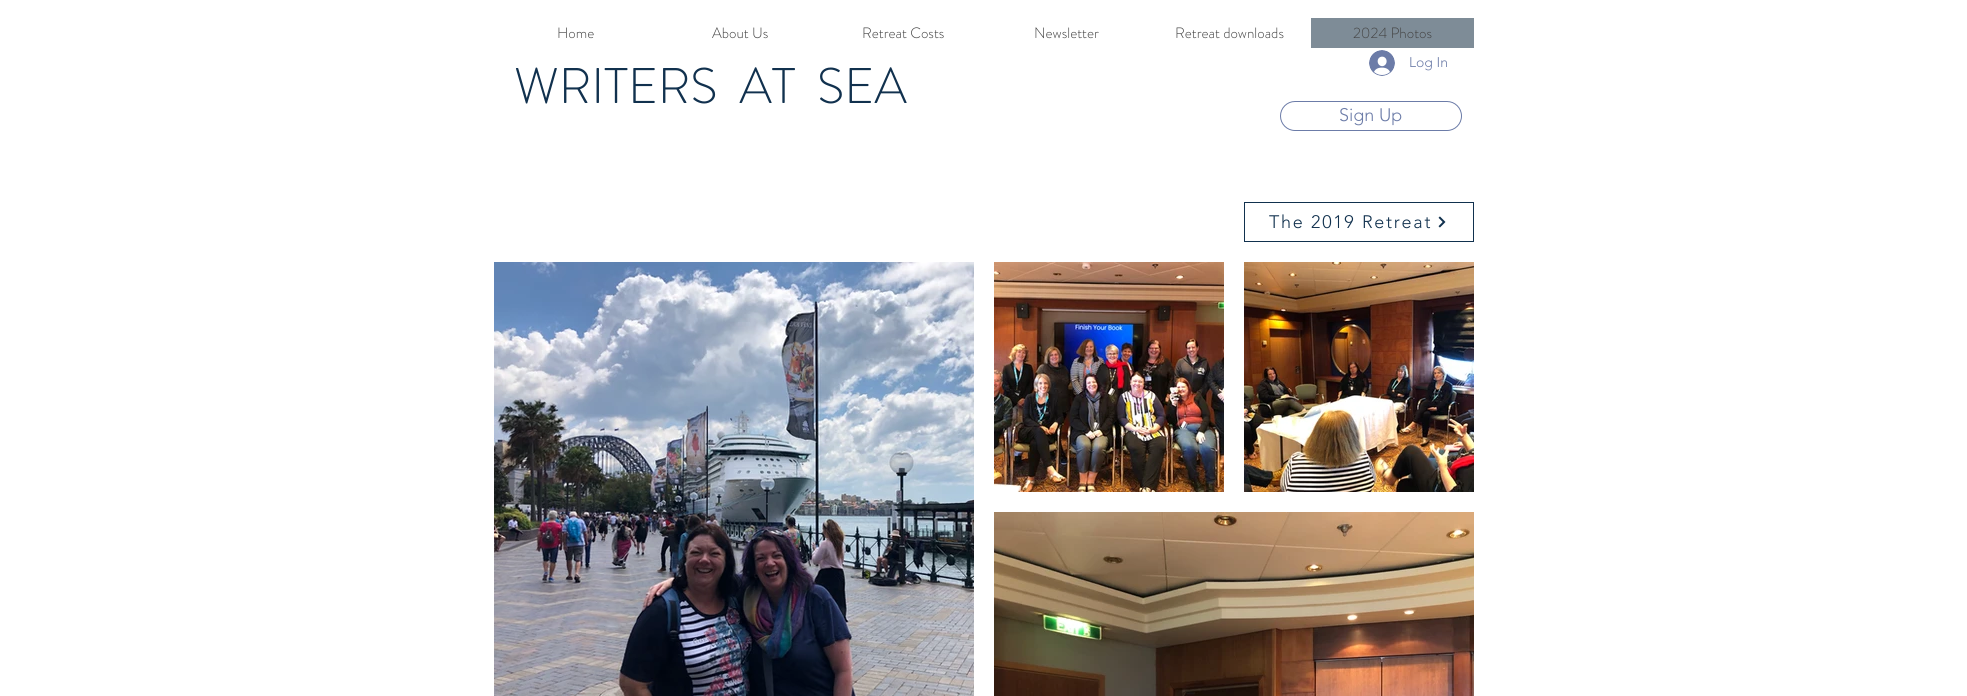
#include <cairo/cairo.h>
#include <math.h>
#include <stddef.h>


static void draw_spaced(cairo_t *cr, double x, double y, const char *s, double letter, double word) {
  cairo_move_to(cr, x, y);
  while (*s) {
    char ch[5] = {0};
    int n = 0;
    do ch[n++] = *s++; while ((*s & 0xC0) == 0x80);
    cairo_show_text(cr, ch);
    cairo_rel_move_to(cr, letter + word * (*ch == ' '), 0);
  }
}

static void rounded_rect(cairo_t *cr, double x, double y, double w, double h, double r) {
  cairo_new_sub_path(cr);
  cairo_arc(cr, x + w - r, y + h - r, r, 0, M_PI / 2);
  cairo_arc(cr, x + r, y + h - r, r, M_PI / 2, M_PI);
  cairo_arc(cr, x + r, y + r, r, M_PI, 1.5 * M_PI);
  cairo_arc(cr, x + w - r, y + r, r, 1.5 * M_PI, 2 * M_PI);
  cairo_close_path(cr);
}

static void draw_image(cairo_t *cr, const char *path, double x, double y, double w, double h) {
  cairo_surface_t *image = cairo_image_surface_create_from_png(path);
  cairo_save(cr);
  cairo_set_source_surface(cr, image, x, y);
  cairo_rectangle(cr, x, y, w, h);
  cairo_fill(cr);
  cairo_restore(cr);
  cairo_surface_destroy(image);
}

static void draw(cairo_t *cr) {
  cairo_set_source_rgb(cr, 1, 1, 1);
  cairo_paint(cr);
  cairo_set_source_rgb(cr, 126 / 255.0, 140 / 255.0, 151 / 255.0);
  cairo_rectangle(cr, 1311, 18, 163, 30);
  cairo_fill(cr);
  draw_image(cr, "images/1.png", 1369, 50, 26, 26);
  rounded_rect(cr, 1280.5, 101.5, 181, 29, 14.5);
  cairo_set_source_rgb(cr, 108 / 255.0, 124 / 255.0, 168 / 255.0);
  cairo_set_line_width(cr, 1);
  cairo_stroke(cr);
  cairo_rectangle(cr, 1244.5, 202.5, 229, 39);
  cairo_set_source_rgb(cr, 17 / 255.0, 49 / 255.0, 78 / 255.0);
  cairo_stroke(cr);
  draw_image(cr, "images/2.png", 1438, 216, 8, 12);
  draw_image(cr, "images/3.png", 494, 262, 480, 434);
  draw_image(cr, "images/4.png", 994, 262, 230, 230);
  draw_image(cr, "images/5.png", 1244, 262, 230, 230);
  draw_image(cr, "images/6.png", 994, 512, 480, 184);
  cairo_select_font_face(cr, "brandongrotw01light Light", CAIRO_FONT_SLANT_NORMAL, CAIRO_FONT_WEIGHT_NORMAL);
  cairo_set_font_size(cr, 15);
  cairo_set_source_rgb(cr, 68 / 255.0, 68 / 255.0, 68 / 255.0);
  cairo_move_to(cr, 557, 38);
  cairo_show_text(cr, "Home");
  cairo_move_to(cr, 712, 38);
  cairo_show_text(cr, "About Us");
  cairo_move_to(cr, 862, 38);
  cairo_show_text(cr, "Retreat Costs");
  cairo_move_to(cr, 1034, 38);
  cairo_show_text(cr, "Newsletter");
  cairo_move_to(cr, 1175, 38);
  cairo_show_text(cr, "Retreat downloads");
  cairo_move_to(cr, 1353, 38);
  cairo_show_text(cr, "2024 Photos");
  cairo_select_font_face(cr, "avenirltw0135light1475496 Light", CAIRO_FONT_SLANT_NORMAL, CAIRO_FONT_WEIGHT_NORMAL);
  cairo_set_font_size(cr, 14);
  cairo_set_source_rgb(cr, 108 / 255.0, 124 / 255.0, 168 / 255.0);
  cairo_move_to(cr, 1409, 67);
  cairo_show_text(cr, "Log In");
  cairo_select_font_face(cr, "brandongrotw01light Light", CAIRO_FONT_SLANT_NORMAL, CAIRO_FONT_WEIGHT_NORMAL);
  cairo_set_font_size(cr, 50);
  cairo_set_source_rgb(cr, 17 / 255.0, 49 / 255.0, 78 / 255.0);
  cairo_move_to(cr, 514, 103);
  cairo_show_text(cr, "WRITERS  AT  SEA");
  cairo_select_font_face(cr, "avenirltw0135light1475496 Light", CAIRO_FONT_SLANT_NORMAL, CAIRO_FONT_WEIGHT_NORMAL);
  cairo_set_font_size(cr, 18);
  cairo_set_source_rgb(cr, 108 / 255.0, 124 / 255.0, 168 / 255.0);
  cairo_move_to(cr, 1339, 121);
  cairo_show_text(cr, "Sign Up");
  cairo_set_source_rgb(cr, 17 / 255.0, 49 / 255.0, 78 / 255.0);
  draw_spaced(cr, 1269, 228, "The 2019 Retreat", 1.75, 0);
}

int main(void) {
  cairo_surface_t *surface = cairo_image_surface_create(CAIRO_FORMAT_RGB24, 1967, 696);
  cairo_t *cr = cairo_create(surface);
  cairo_font_options_t *options = cairo_font_options_create();
  cairo_font_options_set_hint_metrics(options, CAIRO_HINT_METRICS_OFF);
  cairo_font_options_set_hint_style(options, CAIRO_HINT_STYLE_NONE);
  cairo_set_font_options(cr, options);
  cairo_set_miter_limit(cr, 4);
  draw(cr);
  cairo_surface_write_to_png(surface, "out.png");
  cairo_font_options_destroy(options);
  cairo_destroy(cr);
  cairo_surface_destroy(surface);
  return 0;
}
